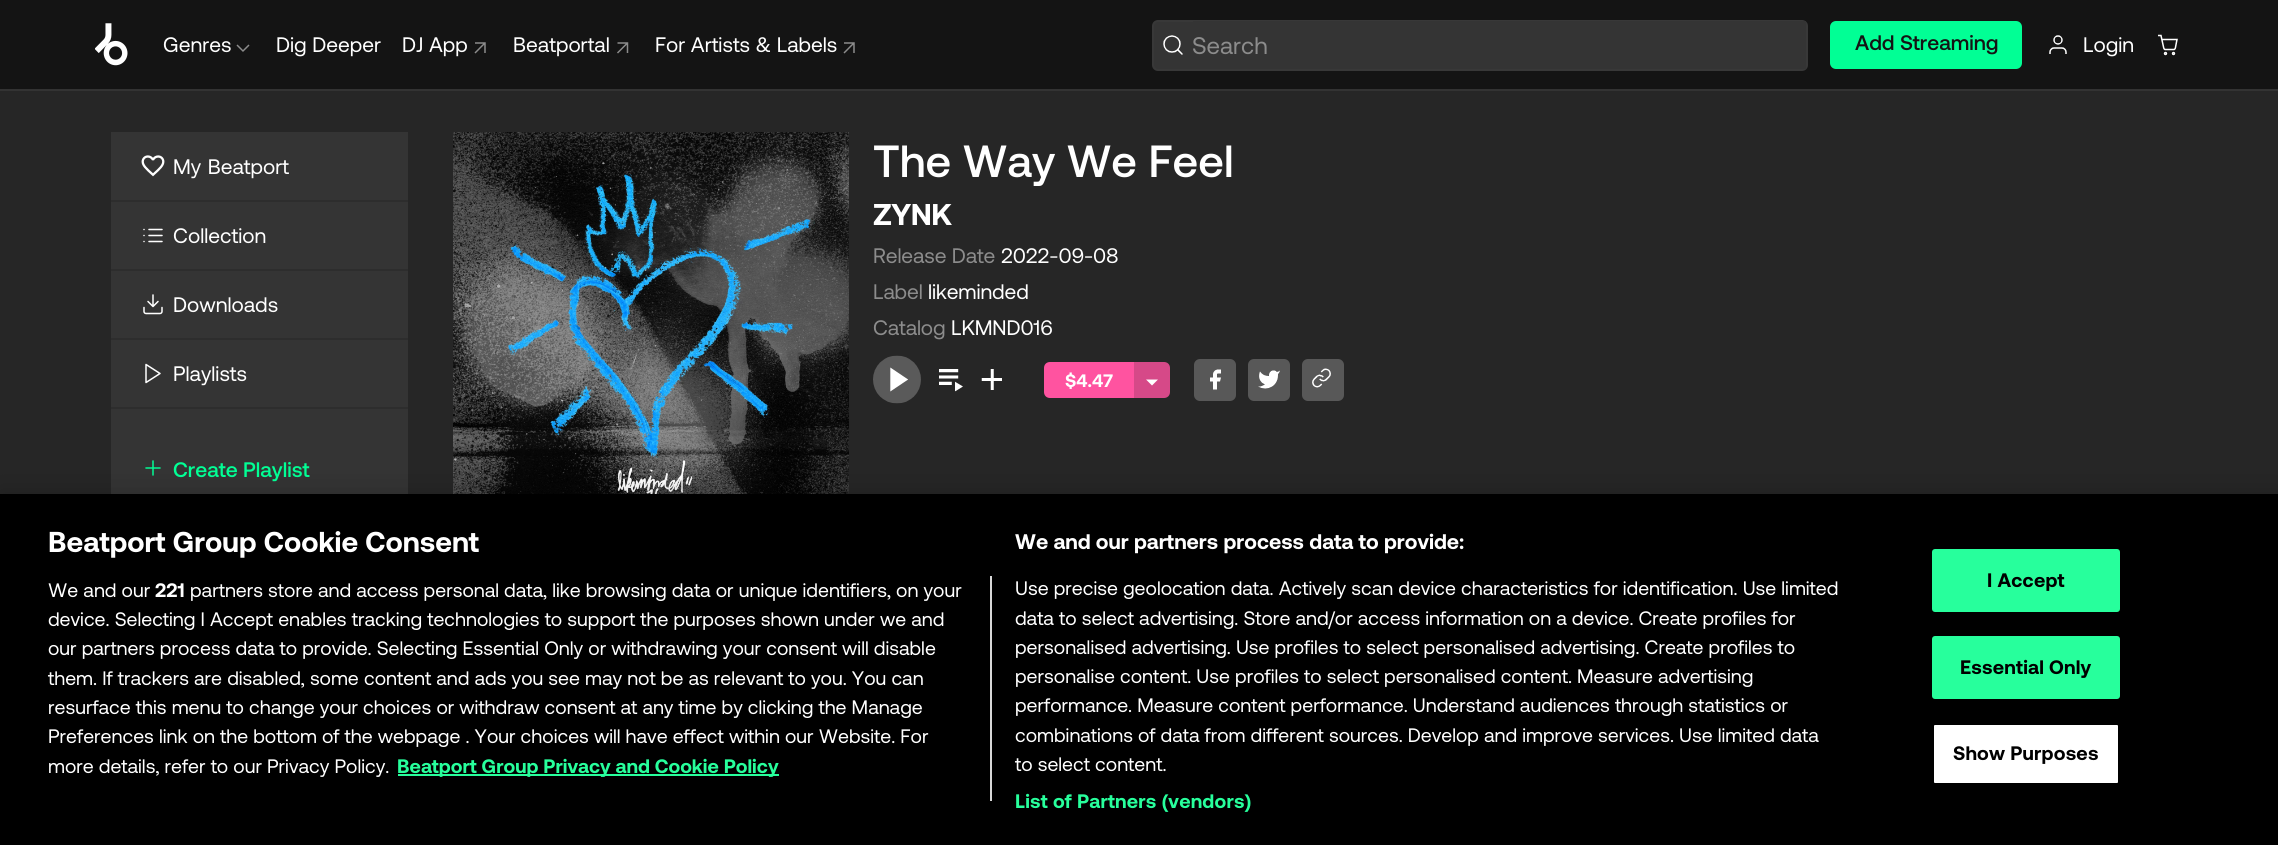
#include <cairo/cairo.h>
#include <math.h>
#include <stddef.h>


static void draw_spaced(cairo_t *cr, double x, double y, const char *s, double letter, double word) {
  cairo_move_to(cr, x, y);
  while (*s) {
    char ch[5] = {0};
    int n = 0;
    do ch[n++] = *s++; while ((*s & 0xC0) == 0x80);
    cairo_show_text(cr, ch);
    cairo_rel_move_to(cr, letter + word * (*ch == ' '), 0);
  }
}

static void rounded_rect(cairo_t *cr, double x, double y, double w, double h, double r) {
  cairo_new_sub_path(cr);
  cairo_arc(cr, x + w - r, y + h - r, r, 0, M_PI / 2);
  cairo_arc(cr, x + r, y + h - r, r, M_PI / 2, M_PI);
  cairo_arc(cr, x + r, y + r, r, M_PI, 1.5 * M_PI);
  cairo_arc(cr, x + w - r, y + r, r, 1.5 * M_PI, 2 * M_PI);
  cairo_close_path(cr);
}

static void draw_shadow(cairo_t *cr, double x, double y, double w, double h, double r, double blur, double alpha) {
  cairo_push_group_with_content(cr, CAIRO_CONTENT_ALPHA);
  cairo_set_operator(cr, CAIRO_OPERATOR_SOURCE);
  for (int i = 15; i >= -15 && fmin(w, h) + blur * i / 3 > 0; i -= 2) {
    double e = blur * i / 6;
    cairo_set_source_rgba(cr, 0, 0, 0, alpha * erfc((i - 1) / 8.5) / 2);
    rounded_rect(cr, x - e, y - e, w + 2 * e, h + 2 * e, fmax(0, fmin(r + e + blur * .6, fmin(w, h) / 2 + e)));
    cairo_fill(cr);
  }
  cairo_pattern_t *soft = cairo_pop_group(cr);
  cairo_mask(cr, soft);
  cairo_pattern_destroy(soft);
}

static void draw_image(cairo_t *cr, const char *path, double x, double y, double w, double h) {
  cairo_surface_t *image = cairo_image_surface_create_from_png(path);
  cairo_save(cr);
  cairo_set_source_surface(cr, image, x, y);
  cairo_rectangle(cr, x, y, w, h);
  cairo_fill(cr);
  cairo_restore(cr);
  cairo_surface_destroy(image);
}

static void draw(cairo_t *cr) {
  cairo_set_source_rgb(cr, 38 / 255.0, 38 / 255.0, 38 / 255.0);
  cairo_paint(cr);
  cairo_set_source_rgb(cr, 20 / 255.0, 20 / 255.0, 20 / 255.0);
  cairo_rectangle(cr, 0, 0, 2278, 89);
  cairo_fill(cr);
  cairo_set_source_rgb(cr, 51 / 255.0, 51 / 255.0, 51 / 255.0);
  cairo_rectangle(cr, 0, 89, 2278, 2);
  cairo_fill(cr);
  draw_image(cr, "images/1.png", 95, 23, 33, 43);
  draw_image(cr, "images/2.png", 236, 44, 14, 8);
  draw_image(cr, "images/3.png", 474, 42, 12, 12);
  draw_image(cr, "images/4.png", 617, 42, 12, 12);
  draw_image(cr, "images/3.png", 843, 42, 12, 12);
  cairo_set_source_rgb(cr, 52 / 255.0, 52 / 255.0, 52 / 255.0);
  rounded_rect(cr, 1153, 21, 654, 49, 5);
  cairo_fill_preserve(cr);
  cairo_set_source_rgb(cr, 56 / 255.0, 56 / 255.0, 56 / 255.0);
  cairo_stroke(cr);
  draw_image(cr, "images/5.png", 1163, 35, 20, 20);
  cairo_set_source_rgb(cr, 52 / 255.0, 52 / 255.0, 52 / 255.0);
  cairo_rectangle(cr, 1193, 21, 613, 48);
  cairo_fill(cr);
  cairo_set_source_rgb(cr, 1 / 255.0, 1, 149 / 255.0);
  rounded_rect(cr, 1830, 21, 192, 48, 6);
  cairo_fill(cr);
  draw_image(cr, "images/6.png", 2049, 35, 18, 19);
  draw_image(cr, "images/7.png", 2158, 34, 20, 22);
  cairo_set_source_rgb(cr, 52 / 255.0, 52 / 255.0, 52 / 255.0);
  cairo_rectangle(cr, 111, 132, 297, 362);
  cairo_fill(cr);
  cairo_set_source_rgb(cr, 45 / 255.0, 45 / 255.0, 45 / 255.0);
  cairo_rectangle(cr, 111, 200, 297, 2);
  cairo_fill(cr);
  draw_image(cr, "images/8.png", 141, 155, 24, 22);
  cairo_rectangle(cr, 111, 269, 297, 2);
  cairo_fill(cr);
  draw_image(cr, "images/9.png", 143, 228, 20, 15);
  cairo_rectangle(cr, 111, 338, 297, 2);
  cairo_fill(cr);
  draw_image(cr, "images/10.png", 143, 294, 20, 21);
  cairo_rectangle(cr, 111, 407, 297, 2);
  cairo_fill(cr);
  cairo_new_path(cr);
  cairo_move_to(cr, 146, 364.5);
  cairo_line_to(cr, 160, 373.5);
  cairo_line_to(cr, 146, 382.5);
  cairo_close_path(cr);
  cairo_set_source_rgb(cr, 1, 1, 1);
  cairo_set_line_width(cr, 1.5);
  cairo_set_line_cap(cr, CAIRO_LINE_CAP_ROUND);
  cairo_set_line_join(cr, CAIRO_LINE_JOIN_ROUND);
  cairo_stroke(cr);
  cairo_new_path(cr);
  cairo_move_to(cr, 153, 461);
  cairo_line_to(cr, 153, 475);
  cairo_move_to(cr, 146, 468);
  cairo_line_to(cr, 160, 468);
  cairo_set_source_rgb(cr, 1 / 255.0, 1, 149 / 255.0);
  cairo_stroke(cr);
  draw_image(cr, "images/11.png", 453, 132, 396, 362);
  draw_image(cr, "images/12.png", 873, 355, 48, 49);
  draw_image(cr, "images/13.png", 939, 369, 24, 23);
  draw_image(cr, "images/14.png", 981, 369, 21, 21);
  cairo_set_source_rgb(cr, 1, 83 / 255.0, 160 / 255.0);
  cairo_new_path(cr);
  cairo_move_to(cr, 1050, 362);
  cairo_line_to(cr, 1134, 362);
  cairo_line_to(cr, 1134, 398);
  cairo_line_to(cr, 1050, 398);
  cairo_curve_to(cr, 1046.5, 398, 1044, 395.5, 1044, 392);
  cairo_line_to(cr, 1044, 368);
  cairo_curve_to(cr, 1044, 364.5, 1046.5, 362, 1050, 362);
  cairo_close_path(cr);
  cairo_fill(cr);
  cairo_set_source_rgb(cr, 214 / 255.0, 73 / 255.0, 136 / 255.0);
  cairo_new_path(cr);
  cairo_move_to(cr, 1134, 362);
  cairo_line_to(cr, 1164, 362);
  cairo_curve_to(cr, 1167.5, 362, 1170, 364.5, 1170, 368);
  cairo_line_to(cr, 1170, 392);
  cairo_curve_to(cr, 1170, 395.5, 1167.5, 398, 1164, 398);
  cairo_line_to(cr, 1134, 398);
  cairo_close_path(cr);
  cairo_fill(cr);
  cairo_set_source_rgb(cr, 1, 1, 1);
  cairo_new_path(cr);
  cairo_move_to(cr, 1146, 379.5);
  cairo_line_to(cr, 1158, 379.5);
  cairo_line_to(cr, 1152, 385.5);
  cairo_close_path(cr);
  cairo_fill(cr);
  cairo_set_source_rgb(cr, 88 / 255.0, 88 / 255.0, 88 / 255.0);
  rounded_rect(cr, 1194, 359, 42, 42, 6);
  cairo_fill(cr);
  draw_image(cr, "images/15.png", 1210, 369, 11, 21);
  rounded_rect(cr, 1248, 359, 42, 42, 6);
  cairo_fill(cr);
  draw_image(cr, "images/16.png", 1258, 370, 22, 19);
  rounded_rect(cr, 1302, 359, 42, 42, 6);
  cairo_fill(cr);
  draw_image(cr, "images/17.png", 1312, 368, 19, 20);
  cairo_set_source_rgb(cr, 0, 0, 0);
  draw_shadow(cr, 0, 494, 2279, 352, 0, 13.5, 0.2);
  cairo_set_source_rgb(cr, 0, 0, 0);
  cairo_rectangle(cr, 0, 494, 2278, 351);
  cairo_fill(cr);
  cairo_set_source_rgb(cr, 216 / 255.0, 216 / 255.0, 216 / 255.0);
  cairo_rectangle(cr, 990, 576, 2, 225);
  cairo_fill(cr);
  cairo_set_source_rgb(cr, 39 / 255.0, 1, 156 / 255.0);
  cairo_rectangle(cr, 398, 774, 381, 2);
  cairo_fill(cr);
  rounded_rect(cr, 1933, 550, 186, 61, 2);
  cairo_fill_preserve(cr);
  cairo_set_line_width(cr, 2);
  cairo_set_line_cap(cr, CAIRO_LINE_CAP_BUTT);
  cairo_set_line_join(cr, CAIRO_LINE_JOIN_MITER);
  cairo_stroke(cr);
  rounded_rect(cr, 1933, 637, 186, 61, 2);
  cairo_fill_preserve(cr);
  cairo_stroke(cr);
  cairo_set_source_rgb(cr, 1, 1, 1);
  rounded_rect(cr, 1933, 724, 186, 60, 2);
  cairo_fill_preserve(cr);
  cairo_set_source_rgb(cr, 0, 0, 0);
  cairo_stroke(cr);
  cairo_select_font_face(cr, "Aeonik", CAIRO_FONT_SLANT_NORMAL, CAIRO_FONT_WEIGHT_NORMAL);
  cairo_set_font_size(cr, 21);
  cairo_set_source_rgb(cr, 1, 1, 1);
  cairo_move_to(cr, 163, 52);
  cairo_show_text(cr, "Genres");
  cairo_move_to(cr, 276, 52);
  cairo_show_text(cr, "Dig Deeper");
  cairo_move_to(cr, 402, 52);
  cairo_show_text(cr, "DJ App");
  cairo_move_to(cr, 513, 52);
  cairo_show_text(cr, "Beatportal");
  cairo_move_to(cr, 655, 52);
  cairo_show_text(cr, "For Artists & Labels");
  cairo_set_font_size(cr, 24);
  cairo_set_source_rgb(cr, 140 / 255.0, 140 / 255.0, 140 / 255.0);
  cairo_move_to(cr, 1192, 54);
  cairo_show_text(cr, "Search");
  cairo_select_font_face(cr, "Aeonik Medium", CAIRO_FONT_SLANT_NORMAL, CAIRO_FONT_WEIGHT_NORMAL);
  cairo_set_font_size(cr, 21);
  cairo_set_source_rgb(cr, 20 / 255.0, 20 / 255.0, 20 / 255.0);
  cairo_move_to(cr, 1855, 50);
  cairo_show_text(cr, "Add Streaming");
  cairo_select_font_face(cr, "Aeonik", CAIRO_FONT_SLANT_NORMAL, CAIRO_FONT_WEIGHT_NORMAL);
  cairo_set_source_rgb(cr, 1, 1, 1);
  cairo_move_to(cr, 2083, 52);
  cairo_show_text(cr, "Login");
  draw_spaced(cr, 173, 174, "My Beatport", 0, 1);
  cairo_move_to(cr, 173, 243);
  cairo_show_text(cr, "Collection");
  cairo_move_to(cr, 173, 312);
  cairo_show_text(cr, "Downloads");
  cairo_move_to(cr, 173, 381);
  cairo_show_text(cr, "Playlists");
  cairo_select_font_face(cr, "Aeonik Medium", CAIRO_FONT_SLANT_NORMAL, CAIRO_FONT_WEIGHT_NORMAL);
  cairo_set_source_rgb(cr, 1 / 255.0, 1, 149 / 255.0);
  cairo_move_to(cr, 173, 477);
  cairo_show_text(cr, "Create Playlist");
  cairo_set_font_size(cr, 45);
  cairo_set_source_rgb(cr, 1, 1, 1);
  cairo_move_to(cr, 873, 177);
  cairo_show_text(cr, "The Way We Feel");
  cairo_select_font_face(cr, "Aeonik", CAIRO_FONT_SLANT_NORMAL, CAIRO_FONT_WEIGHT_BOLD);
  cairo_set_font_size(cr, 30);
  draw_spaced(cr, 873, 225, "ZYNK", -0.5, 0);
  cairo_select_font_face(cr, "Aeonik", CAIRO_FONT_SLANT_NORMAL, CAIRO_FONT_WEIGHT_NORMAL);
  cairo_set_font_size(cr, 21);
  cairo_set_source_rgb(cr, 140 / 255.0, 140 / 255.0, 140 / 255.0);
  draw_spaced(cr, 873, 263, "Release Date", -0.1, 0);
  cairo_set_source_rgb(cr, 1, 1, 1);
  draw_spaced(cr, 1001, 263, "2022-09-08", -0.1, 0);
  cairo_set_source_rgb(cr, 140 / 255.0, 140 / 255.0, 140 / 255.0);
  draw_spaced(cr, 873, 299, "Label", -0.1, 0);
  cairo_set_source_rgb(cr, 1, 1, 1);
  draw_spaced(cr, 928, 299, "likeminded", -0.1, 0);
  cairo_set_source_rgb(cr, 140 / 255.0, 140 / 255.0, 140 / 255.0);
  draw_spaced(cr, 873, 335, "Catalog", -0.1, 0);
  cairo_set_source_rgb(cr, 1, 1, 1);
  draw_spaced(cr, 951, 335, "LKMND016", -0.1, 0);
  cairo_select_font_face(cr, "Aeonik", CAIRO_FONT_SLANT_NORMAL, CAIRO_FONT_WEIGHT_BOLD);
  cairo_set_font_size(cr, 18);
  cairo_move_to(cr, 1065, 387);
  cairo_show_text(cr, "$4.47");
  cairo_set_font_size(cr, 28.75);
  cairo_move_to(cr, 48, 552);
  cairo_show_text(cr, "Beatport Group Cookie Consent");
  cairo_set_font_size(cr, 21.1);
  cairo_move_to(cr, 1015, 549);
  cairo_show_text(cr, "We and our partners process data to provide:");
  cairo_select_font_face(cr, "Aeonik", CAIRO_FONT_SLANT_NORMAL, CAIRO_FONT_WEIGHT_NORMAL);
  cairo_set_font_size(cr, 19.5);
  cairo_move_to(cr, 1015, 595);
  cairo_show_text(cr, "Use precise geolocation data. Actively scan device characteristics for identification. Use limited");
  cairo_move_to(cr, 1015, 625);
  cairo_show_text(cr, "data to select advertising. Store and/or access information on a device. Create profiles for");
  cairo_move_to(cr, 1015, 654);
  cairo_show_text(cr, "personalised advertising. Use profiles to select personalised advertising. Create profiles to");
  cairo_move_to(cr, 1015, 683);
  cairo_show_text(cr, "personalise content. Use profiles to select personalised content. Measure advertising");
  cairo_move_to(cr, 1015, 712);
  cairo_show_text(cr, "performance. Measure content performance. Understand audiences through statistics or");
  cairo_move_to(cr, 1015, 742);
  cairo_show_text(cr, "combinations of data from different sources. Develop and improve services. Use limited data");
  cairo_move_to(cr, 1015, 771);
  cairo_show_text(cr, "to select content.");
  cairo_select_font_face(cr, "Aeonik", CAIRO_FONT_SLANT_NORMAL, CAIRO_FONT_WEIGHT_BOLD);
  cairo_set_source_rgb(cr, 39 / 255.0, 1, 156 / 255.0);
  draw_spaced(cr, 1015, 808, "List of Partners (vendors)", 0.2, 0);
  cairo_select_font_face(cr, "Aeonik", CAIRO_FONT_SLANT_NORMAL, CAIRO_FONT_WEIGHT_NORMAL);
  cairo_set_source_rgb(cr, 1, 1, 1);
  cairo_move_to(cr, 48, 597);
  cairo_show_text(cr, "We and our");
  cairo_select_font_face(cr, "Aeonik", CAIRO_FONT_SLANT_NORMAL, CAIRO_FONT_WEIGHT_BOLD);
  cairo_move_to(cr, 155, 597);
  cairo_show_text(cr, "221");
  cairo_select_font_face(cr, "Aeonik", CAIRO_FONT_SLANT_NORMAL, CAIRO_FONT_WEIGHT_NORMAL);
  cairo_move_to(cr, 190, 597);
  cairo_show_text(cr, "partners store and access personal data, like browsing data or unique identifiers, on your");
  cairo_move_to(cr, 48, 626);
  cairo_show_text(cr, "device. Selecting I Accept enables tracking technologies to support the purposes shown under we and");
  cairo_move_to(cr, 48, 655);
  cairo_show_text(cr, "our partners process data to provide. Selecting Essential Only or withdrawing your consent will disable");
  cairo_move_to(cr, 48, 685);
  cairo_show_text(cr, "them. If trackers are disabled, some content and ads you see may not be as relevant to you. You can");
  cairo_move_to(cr, 48, 714);
  cairo_show_text(cr, "resurface this menu to change your choices or withdraw consent at any time by clicking the Manage");
  cairo_move_to(cr, 48, 743);
  cairo_show_text(cr, "Preferences link on the bottom of the webpage . Your choices will have effect within our Website. For");
  cairo_move_to(cr, 48, 773);
  cairo_show_text(cr, "more details, refer to our Privacy Policy.");
  cairo_select_font_face(cr, "Aeonik", CAIRO_FONT_SLANT_NORMAL, CAIRO_FONT_WEIGHT_BOLD);
  cairo_set_source_rgb(cr, 39 / 255.0, 1, 156 / 255.0);
  cairo_move_to(cr, 397, 773);
  cairo_show_text(cr, "Beatport Group Privacy and Cookie Policy");
  cairo_set_source_rgb(cr, 0, 0, 0);
  draw_spaced(cr, 1987, 587, "I Accept", 0.2, 0);
  draw_spaced(cr, 1960, 674, "Essential Only", 0.2, 0);
  draw_spaced(cr, 1953, 760, "Show Purposes", 0.2, 0);
}

int main(void) {
  cairo_surface_t *surface = cairo_image_surface_create(CAIRO_FORMAT_RGB24, 2278, 845);
  cairo_t *cr = cairo_create(surface);
  cairo_font_options_t *options = cairo_font_options_create();
  cairo_font_options_set_hint_metrics(options, CAIRO_HINT_METRICS_OFF);
  cairo_font_options_set_hint_style(options, CAIRO_HINT_STYLE_NONE);
  cairo_set_font_options(cr, options);
  cairo_set_miter_limit(cr, 4);
  draw(cr);
  cairo_surface_write_to_png(surface, "out.png");
  cairo_font_options_destroy(options);
  cairo_destroy(cr);
  cairo_surface_destroy(surface);
  return 0;
}
